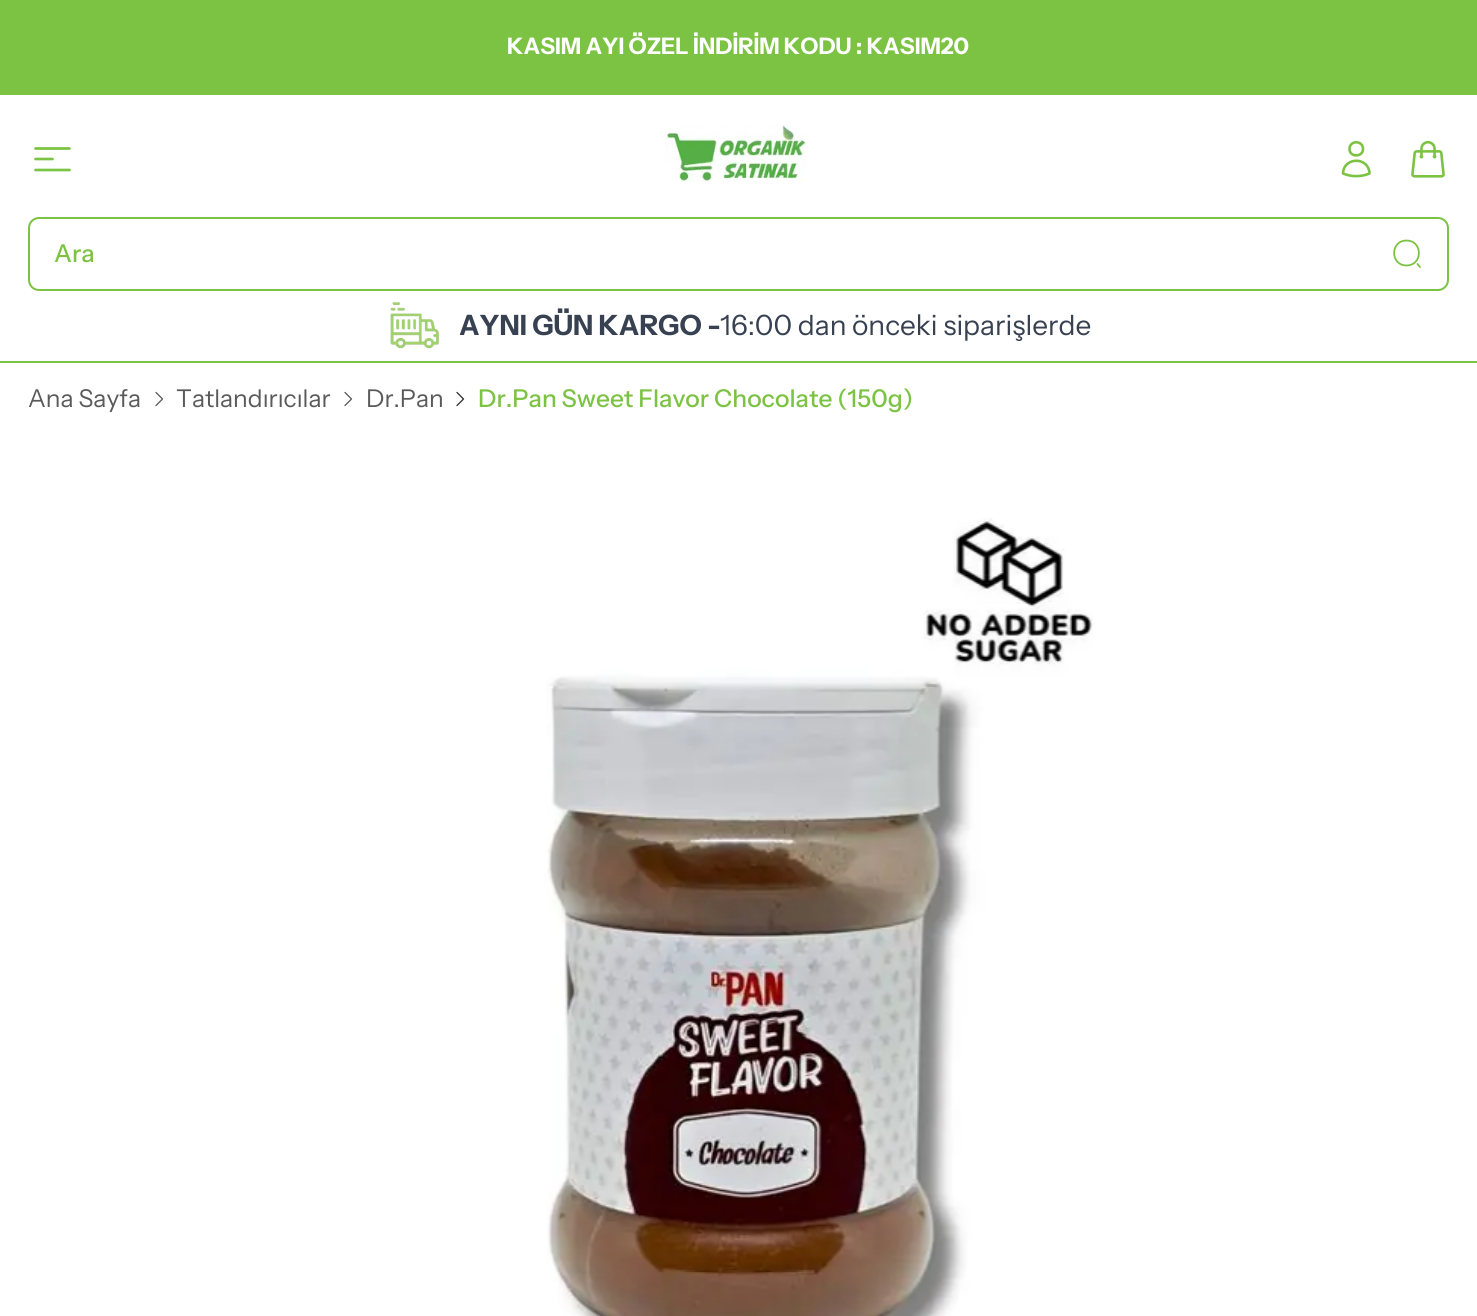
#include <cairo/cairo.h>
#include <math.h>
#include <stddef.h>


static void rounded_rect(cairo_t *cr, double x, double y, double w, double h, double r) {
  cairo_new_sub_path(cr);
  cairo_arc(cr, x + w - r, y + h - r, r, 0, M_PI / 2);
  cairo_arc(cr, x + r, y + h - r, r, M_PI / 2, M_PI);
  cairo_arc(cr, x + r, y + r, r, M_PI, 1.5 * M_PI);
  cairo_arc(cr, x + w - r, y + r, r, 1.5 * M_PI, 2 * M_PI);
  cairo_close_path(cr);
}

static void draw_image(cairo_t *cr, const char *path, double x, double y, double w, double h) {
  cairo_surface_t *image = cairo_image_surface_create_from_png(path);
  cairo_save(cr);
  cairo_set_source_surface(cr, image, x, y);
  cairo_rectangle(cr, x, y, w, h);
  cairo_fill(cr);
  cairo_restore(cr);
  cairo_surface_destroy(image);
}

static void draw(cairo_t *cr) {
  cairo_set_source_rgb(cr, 1, 1, 1);
  cairo_paint(cr);
  cairo_set_source_rgb(cr, 124 / 255.0, 194 / 255.0, 67 / 255.0);
  cairo_rectangle(cr, 0, 361, 1477, 2);
  cairo_fill(cr);
  cairo_rectangle(cr, 0, 0, 1477, 95);
  cairo_fill(cr);
  cairo_new_path(cr);
  cairo_move_to(cr, 35.5, 148.5);
  cairo_line_to(cr, 69.5, 148.5);
  cairo_move_to(cr, 35.5, 159);
  cairo_line_to(cr, 52.5, 159);
  cairo_move_to(cr, 35.5, 170);
  cairo_line_to(cr, 69.5, 170);
  cairo_set_line_width(cr, 2.7);
  cairo_set_line_cap(cr, CAIRO_LINE_CAP_ROUND);
  cairo_set_line_join(cr, CAIRO_LINE_JOIN_ROUND);
  cairo_stroke(cr);
  draw_image(cr, "images/1.png", 665, 125, 142, 57);
  cairo_new_path(cr);
  cairo_move_to(cr, 1363, 149);
  cairo_curve_to(cr, 1363, 157.5, 1349.5, 157.5, 1349.5, 149);
  cairo_curve_to(cr, 1349.5, 140, 1363, 140, 1363, 149);
  cairo_close_path(cr);
  cairo_move_to(cr, 1343, 173.5);
  cairo_curve_to(cr, 1343.5, 156.5, 1369, 156.5, 1369.5, 173.5);
  cairo_curve_to(cr, 1361, 177, 1351.5, 177, 1343, 173.5);
  cairo_close_path(cr);
  cairo_set_line_width(cr, 2.6);
  cairo_stroke(cr);
  draw_image(cr, "images/2.png", 1411, 140, 34, 38);
  rounded_rect(cr, 29, 218, 1419, 72, 10);
  cairo_set_line_width(cr, 2);
  cairo_set_line_cap(cr, CAIRO_LINE_CAP_BUTT);
  cairo_set_line_join(cr, CAIRO_LINE_JOIN_MITER);
  cairo_stroke(cr);
  cairo_new_path(cr);
  cairo_move_to(cr, 1406.5, 265.5);
  cairo_curve_to(cr, 1423, 265.5, 1423, 240.5, 1406.5, 240.5);
  cairo_curve_to(cr, 1390, 240.5, 1390, 265.5, 1406.5, 265.5);
  cairo_close_path(cr);
  cairo_move_to(cr, 1420, 267);
  cairo_line_to(cr, 1417.5, 264);
  cairo_set_line_width(cr, 1.8);
  cairo_set_line_cap(cr, CAIRO_LINE_CAP_ROUND);
  cairo_set_line_join(cr, CAIRO_LINE_JOIN_ROUND);
  cairo_stroke(cr);
  draw_image(cr, "images/3.png", 390, 301, 50, 48);
  cairo_new_path(cr);
  cairo_move_to(cr, 156, 392.5);
  cairo_line_to(cr, 162.5, 399);
  cairo_line_to(cr, 156, 405.5);
  cairo_set_source_rgb(cr, 90 / 255.0, 90 / 255.0, 90 / 255.0);
  cairo_set_line_width(cr, 1.3);
  cairo_stroke(cr);
  cairo_new_path(cr);
  cairo_move_to(cr, 345, 392.5);
  cairo_line_to(cr, 351.5, 399);
  cairo_line_to(cr, 345, 405.5);
  cairo_stroke(cr);
  cairo_new_path(cr);
  cairo_move_to(cr, 457, 392.5);
  cairo_line_to(cr, 463.5, 399);
  cairo_line_to(cr, 457, 405.5);
  cairo_set_source_rgb(cr, 49 / 255.0, 49 / 255.0, 49 / 255.0);
  cairo_stroke(cr);
  draw_image(cr, "images/4.png", 546, 518, 548, 798);
  cairo_select_font_face(cr, "Instrument Sans", CAIRO_FONT_SLANT_NORMAL, CAIRO_FONT_WEIGHT_BOLD);
  cairo_set_font_size(cr, 22.75);
  cairo_set_source_rgb(cr, 1, 1, 1);
  cairo_move_to(cr, 507, 54);
  cairo_show_text(cr, "KASIM AYI ÖZEL İNDİRİM KODU : KASIM20");
  cairo_select_font_face(cr, "Instrument Sans Medium", CAIRO_FONT_SLANT_NORMAL, CAIRO_FONT_WEIGHT_NORMAL);
  cairo_set_font_size(cr, 24.5);
  cairo_set_source_rgb(cr, 124 / 255.0, 194 / 255.0, 67 / 255.0);
  cairo_move_to(cr, 54, 262);
  cairo_show_text(cr, "Ara");
  cairo_select_font_face(cr, "Instrument Sans", CAIRO_FONT_SLANT_NORMAL, CAIRO_FONT_WEIGHT_BOLD);
  cairo_set_font_size(cr, 28);
  cairo_set_source_rgb(cr, 55 / 255.0, 65 / 255.0, 81 / 255.0);
  cairo_move_to(cr, 459, 335);
  cairo_show_text(cr, "AYNI GÜN KARGO -");
  cairo_select_font_face(cr, "Instrument Sans", CAIRO_FONT_SLANT_NORMAL, CAIRO_FONT_WEIGHT_NORMAL);
  cairo_move_to(cr, 720, 335);
  cairo_show_text(cr, "16:00 dan önceki siparişlerde");
  cairo_set_font_size(cr, 24.5);
  cairo_set_source_rgb(cr, 90 / 255.0, 90 / 255.0, 90 / 255.0);
  cairo_move_to(cr, 28, 407);
  cairo_show_text(cr, "Ana Sayfa");
  cairo_move_to(cr, 176, 407);
  cairo_show_text(cr, "Tatlandırıcılar");
  cairo_move_to(cr, 366, 407);
  cairo_show_text(cr, "Dr.Pan");
  cairo_select_font_face(cr, "Instrument Sans Medium", CAIRO_FONT_SLANT_NORMAL, CAIRO_FONT_WEIGHT_NORMAL);
  cairo_set_source_rgb(cr, 124 / 255.0, 194 / 255.0, 67 / 255.0);
  cairo_move_to(cr, 478, 407);
  cairo_show_text(cr, "Dr.Pan Sweet Flavor Chocolate (150g)");
}

int main(void) {
  cairo_surface_t *surface = cairo_image_surface_create(CAIRO_FORMAT_RGB24, 1477, 1316);
  cairo_t *cr = cairo_create(surface);
  cairo_font_options_t *options = cairo_font_options_create();
  cairo_font_options_set_hint_metrics(options, CAIRO_HINT_METRICS_OFF);
  cairo_font_options_set_hint_style(options, CAIRO_HINT_STYLE_NONE);
  cairo_set_font_options(cr, options);
  cairo_set_miter_limit(cr, 4);
  draw(cr);
  cairo_surface_write_to_png(surface, "out.png");
  cairo_font_options_destroy(options);
  cairo_destroy(cr);
  cairo_surface_destroy(surface);
  return 0;
}
